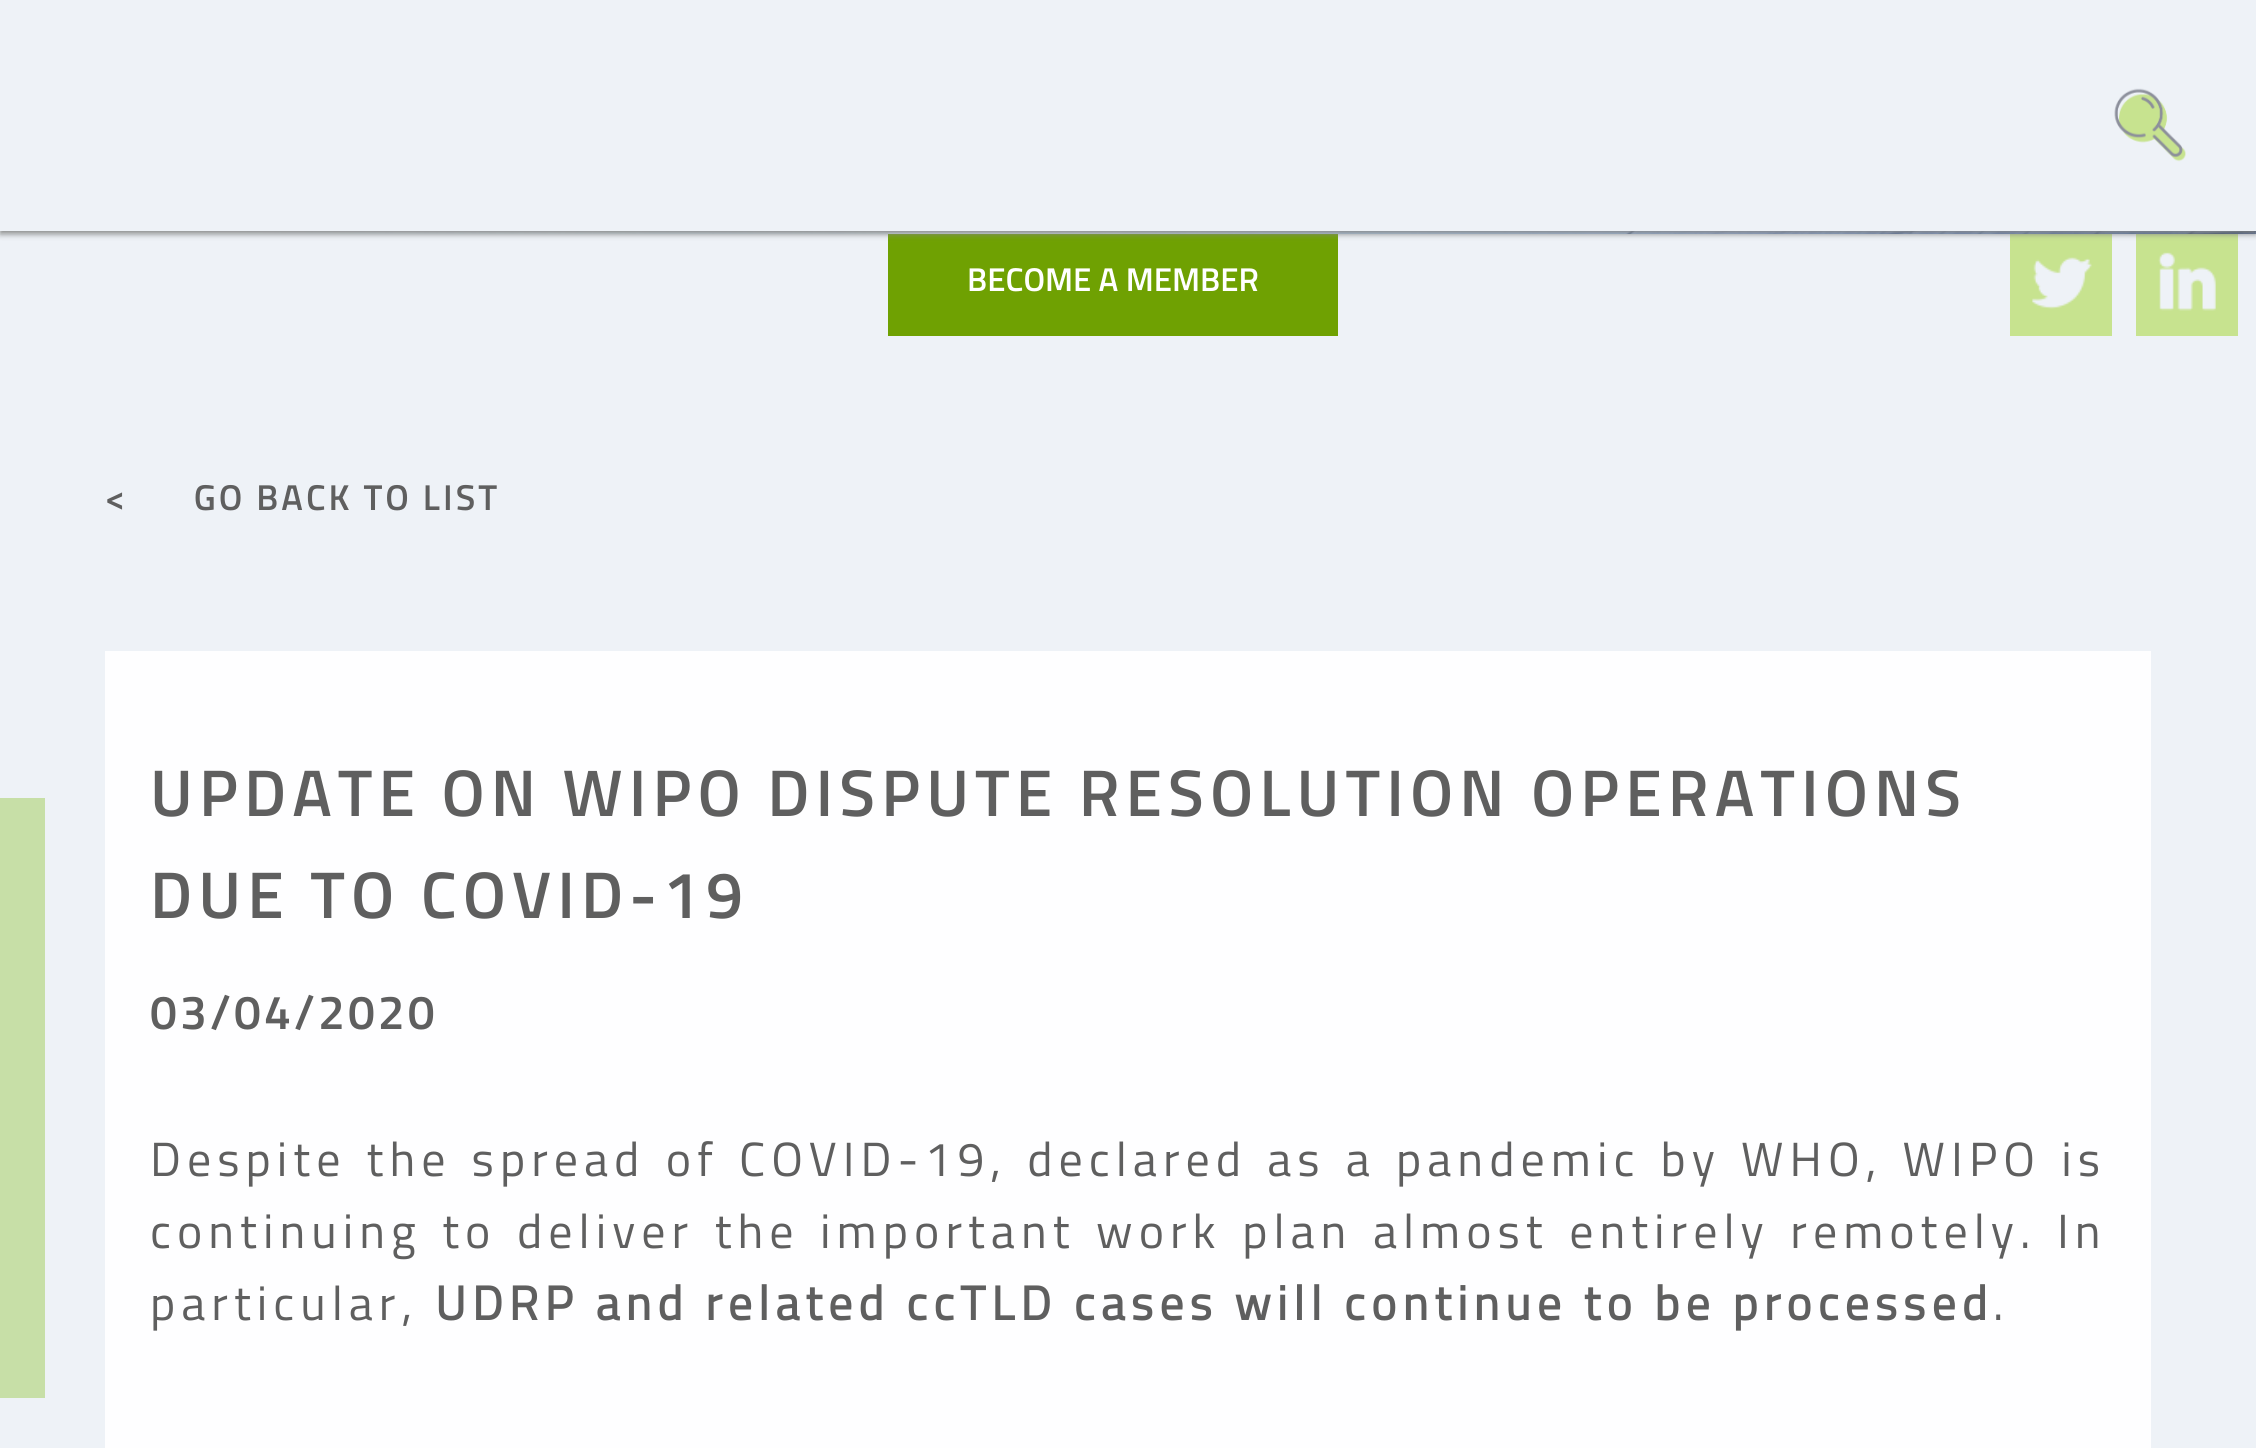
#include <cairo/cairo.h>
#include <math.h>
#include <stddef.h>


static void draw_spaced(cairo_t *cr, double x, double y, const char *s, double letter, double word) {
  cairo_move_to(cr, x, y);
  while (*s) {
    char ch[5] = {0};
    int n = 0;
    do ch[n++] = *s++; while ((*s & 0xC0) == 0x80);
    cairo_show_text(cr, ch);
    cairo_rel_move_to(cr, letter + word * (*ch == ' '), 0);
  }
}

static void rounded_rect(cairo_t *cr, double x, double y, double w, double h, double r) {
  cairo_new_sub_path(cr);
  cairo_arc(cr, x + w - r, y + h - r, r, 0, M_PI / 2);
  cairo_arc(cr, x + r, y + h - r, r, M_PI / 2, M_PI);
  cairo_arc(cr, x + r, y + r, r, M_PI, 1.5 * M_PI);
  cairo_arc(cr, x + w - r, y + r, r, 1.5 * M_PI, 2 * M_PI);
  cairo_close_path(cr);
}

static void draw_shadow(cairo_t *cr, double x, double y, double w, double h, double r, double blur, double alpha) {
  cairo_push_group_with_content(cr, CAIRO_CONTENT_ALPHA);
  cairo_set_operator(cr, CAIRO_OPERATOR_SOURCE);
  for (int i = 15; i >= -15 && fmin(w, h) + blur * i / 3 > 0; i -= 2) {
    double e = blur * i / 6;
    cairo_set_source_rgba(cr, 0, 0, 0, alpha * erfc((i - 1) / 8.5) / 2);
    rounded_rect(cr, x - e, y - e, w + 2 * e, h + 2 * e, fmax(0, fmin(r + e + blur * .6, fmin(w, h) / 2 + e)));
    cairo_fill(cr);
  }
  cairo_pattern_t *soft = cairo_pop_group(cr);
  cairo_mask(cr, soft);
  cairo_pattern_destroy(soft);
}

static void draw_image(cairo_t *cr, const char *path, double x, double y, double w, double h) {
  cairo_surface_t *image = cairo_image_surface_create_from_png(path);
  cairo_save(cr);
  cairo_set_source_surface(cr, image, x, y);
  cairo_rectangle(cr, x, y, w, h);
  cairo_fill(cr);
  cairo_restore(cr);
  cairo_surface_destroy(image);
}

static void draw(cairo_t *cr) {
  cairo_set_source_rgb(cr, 1, 1, 1);
  cairo_paint(cr);
  draw_image(cr, "images/1.png", 0, 231, 2256, 3);
  cairo_set_source_rgb(cr, 238 / 255.0, 242 / 255.0, 247 / 255.0);
  cairo_rectangle(cr, 0, 234, 2256, 1214);
  cairo_fill(cr);
  cairo_set_source_rgb(cr, 111 / 255.0, 161 / 255.0, 2 / 255.0);
  cairo_rectangle(cr, 888, 234, 450, 102);
  cairo_fill(cr);
  draw_image(cr, "images/3.png", 2016, 240, 90, 90);
  cairo_rectangle(cr, 2013, 237, 96, 96);
  cairo_set_source_rgb(cr, 199 / 255.0, 227 / 255.0, 143 / 255.0);
  cairo_set_line_width(cr, 6);
  cairo_stroke(cr);
  draw_image(cr, "images/4.png", 2142, 240, 90, 90);
  cairo_rectangle(cr, 2139, 237, 96, 96);
  cairo_stroke(cr);
  cairo_set_source_rgb(cr, 135 / 255.0, 135 / 255.0, 135 / 255.0);
  draw_shadow(cr, 0, 3, 2256, 231, 0, 3, 1);
  cairo_set_source_rgb(cr, 238 / 255.0, 242 / 255.0, 247 / 255.0);
  cairo_rectangle(cr, 0, 0, 2256, 231);
  cairo_fill(cr);
  draw_image(cr, "images/2.png", 2114, 88, 72, 74);
  cairo_set_source_rgb(cr, 199 / 255.0, 223 / 255.0, 167 / 255.0);
  cairo_rectangle(cr, 0, 798, 45, 600);
  cairo_fill(cr);
  cairo_set_source_rgb(cr, 254 / 255.0, 254 / 255.0, 1);
  cairo_rectangle(cr, 105, 651, 2046, 797);
  cairo_fill(cr);
  cairo_select_font_face(cr, "Titillium Web SemiBold", CAIRO_FONT_SLANT_NORMAL, CAIRO_FONT_WEIGHT_NORMAL);
  cairo_set_font_size(cr, 33);
  cairo_set_source_rgb(cr, 1, 1, 1);
  cairo_move_to(cr, 967, 291);
  cairo_show_text(cr, "BECOME A MEMBER");
  cairo_set_font_size(cr, 36);
  cairo_set_source_rgb(cr, 95 / 255.0, 95 / 255.0, 95 / 255.0);
  draw_spaced(cr, 105, 510, "<      GO BACK TO LIST", 3, 0);
  cairo_set_font_size(cr, 66);
  draw_spaced(cr, 150, 816, "UPDATE ON WIPO DISPUTE RESOLUTION OPERATIONS", 6, 0);
  draw_spaced(cr, 150, 918, "DUE TO COVID-19", 6, 0);
  cairo_set_font_size(cr, 48);
  draw_spaced(cr, 150, 1029, "03/04/2020", 3, 0);
  cairo_select_font_face(cr, "Titillium Web", CAIRO_FONT_SLANT_NORMAL, CAIRO_FONT_WEIGHT_NORMAL);
  draw_spaced(cr, 150, 1176, "Despite the spread of COVID-19, declared as a pandemic by WHO, WIPO is", 6, 3.6);
  draw_spaced(cr, 150, 1248, "continuing to deliver the important work plan almost entirely remotely. In", 6, 4);
  draw_spaced(cr, 150, 1320, "particular,", 6, 0);
  cairo_select_font_face(cr, "Titillium Web", CAIRO_FONT_SLANT_NORMAL, CAIRO_FONT_WEIGHT_BOLD);
  draw_spaced(cr, 435, 1320, "UDRP and related ccTLD cases will continue to be processed", 6, 0);
  cairo_select_font_face(cr, "Titillium Web", CAIRO_FONT_SLANT_NORMAL, CAIRO_FONT_WEIGHT_NORMAL);
  draw_spaced(cr, 1993, 1320, ".", 6, 0);
}

int main(void) {
  cairo_surface_t *surface = cairo_image_surface_create(CAIRO_FORMAT_RGB24, 2256, 1448);
  cairo_t *cr = cairo_create(surface);
  cairo_font_options_t *options = cairo_font_options_create();
  cairo_font_options_set_hint_metrics(options, CAIRO_HINT_METRICS_OFF);
  cairo_font_options_set_hint_style(options, CAIRO_HINT_STYLE_NONE);
  cairo_set_font_options(cr, options);
  cairo_set_miter_limit(cr, 4);
  draw(cr);
  cairo_surface_write_to_png(surface, "out.png");
  cairo_font_options_destroy(options);
  cairo_destroy(cr);
  cairo_surface_destroy(surface);
  return 0;
}
